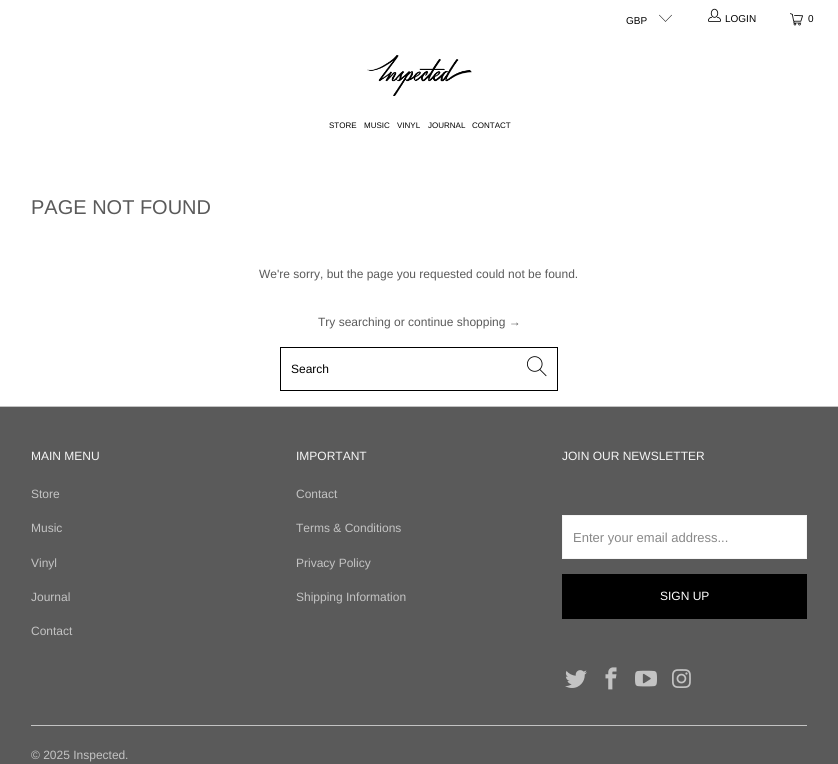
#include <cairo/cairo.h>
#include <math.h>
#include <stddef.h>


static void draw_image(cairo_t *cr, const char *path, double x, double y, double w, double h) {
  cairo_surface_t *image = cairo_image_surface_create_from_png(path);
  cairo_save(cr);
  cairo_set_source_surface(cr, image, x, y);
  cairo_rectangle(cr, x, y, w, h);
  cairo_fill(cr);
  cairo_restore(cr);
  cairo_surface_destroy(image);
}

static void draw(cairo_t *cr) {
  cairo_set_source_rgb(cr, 1, 1, 1);
  cairo_paint(cr);
  draw_image(cr, "images/1.png", 659, 14, 13, 8);
  draw_image(cr, "images/2.png", 708, 8, 13, 14);
  draw_image(cr, "images/3.png", 790, 13, 13, 13);
  draw_image(cr, "images/4.png", 367, 55, 105, 41);
  cairo_rectangle(cr, 280.5, 347.5, 277, 43);
  cairo_set_source_rgb(cr, 0, 0, 0);
  cairo_set_line_width(cr, 1);
  cairo_stroke(cr);
  draw_image(cr, "images/5.png", 527, 356, 20, 21);
  cairo_set_source_rgb(cr, 90 / 255.0, 90 / 255.0, 90 / 255.0);
  cairo_rectangle(cr, 0, 407, 838, 357);
  cairo_fill(cr);
  cairo_set_source_rgb(cr, 195 / 255.0, 195 / 255.0, 195 / 255.0);
  cairo_rectangle(cr, 0, 406, 838, 1);
  cairo_fill(cr);
  cairo_set_source_rgb(cr, 1, 1, 1);
  cairo_rectangle(cr, 562.5, 515.5, 244, 43);
  cairo_fill_preserve(cr);
  cairo_set_source_rgb(cr, 245 / 255.0, 245 / 255.0, 245 / 255.0);
  cairo_stroke(cr);
  cairo_set_source_rgb(cr, 0, 0, 0);
  cairo_rectangle(cr, 562, 574, 245, 45);
  cairo_fill(cr);
  draw_image(cr, "images/6.png", 565, 670, 22, 18);
  draw_image(cr, "images/7.png", 605, 667, 12, 23);
  draw_image(cr, "images/8.png", 635, 670, 22, 17);
  draw_image(cr, "images/9.png", 672, 669, 19, 19);
  cairo_set_source_rgb(cr, 195 / 255.0, 195 / 255.0, 195 / 255.0);
  cairo_rectangle(cr, 31, 725, 776, 1);
  cairo_fill(cr);
  cairo_select_font_face(cr, "Liberation Sans", CAIRO_FONT_SLANT_NORMAL, CAIRO_FONT_WEIGHT_NORMAL);
  cairo_set_font_size(cr, 10);
  cairo_set_source_rgb(cr, 0, 0, 0);
  cairo_move_to(cr, 626, 24);
  cairo_show_text(cr, "GBP");
  cairo_move_to(cr, 725, 22);
  cairo_show_text(cr, "LOGIN");
  cairo_move_to(cr, 808, 22);
  cairo_show_text(cr, "0");
  cairo_set_font_size(cr, 8);
  cairo_move_to(cr, 329, 128);
  cairo_show_text(cr, "STORE");
  cairo_move_to(cr, 364, 128);
  cairo_show_text(cr, "MUSIC");
  cairo_move_to(cr, 397, 128);
  cairo_show_text(cr, "VINYL");
  cairo_move_to(cr, 428, 128);
  cairo_show_text(cr, "JOURNAL");
  cairo_move_to(cr, 472, 128);
  cairo_show_text(cr, "CONTACT");
  cairo_set_font_size(cr, 20);
  cairo_set_source_rgb(cr, 90 / 255.0, 90 / 255.0, 90 / 255.0);
  cairo_move_to(cr, 31, 214);
  cairo_show_text(cr, "PAGE NOT FOUND");
  cairo_set_font_size(cr, 12);
  cairo_move_to(cr, 259, 278);
  cairo_show_text(cr, "We're sorry, but the page you requested could not be found.");
  cairo_move_to(cr, 318, 326);
  cairo_show_text(cr, "Try searching or continue shopping →");
  cairo_set_source_rgb(cr, 0, 0, 0);
  cairo_move_to(cr, 291, 373);
  cairo_show_text(cr, "Search");
  cairo_set_source_rgb(cr, 245 / 255.0, 245 / 255.0, 245 / 255.0);
  cairo_move_to(cr, 31, 460);
  cairo_show_text(cr, "MAIN MENU");
  cairo_set_source_rgb(cr, 195 / 255.0, 195 / 255.0, 195 / 255.0);
  cairo_move_to(cr, 31, 498);
  cairo_show_text(cr, "Store");
  cairo_move_to(cr, 31, 532);
  cairo_show_text(cr, "Music");
  cairo_move_to(cr, 31, 567);
  cairo_show_text(cr, "Vinyl");
  cairo_move_to(cr, 31, 601);
  cairo_show_text(cr, "Journal");
  cairo_move_to(cr, 31, 635);
  cairo_show_text(cr, "Contact");
  cairo_set_source_rgb(cr, 245 / 255.0, 245 / 255.0, 245 / 255.0);
  cairo_move_to(cr, 296, 460);
  cairo_show_text(cr, "IMPORTANT");
  cairo_set_source_rgb(cr, 195 / 255.0, 195 / 255.0, 195 / 255.0);
  cairo_move_to(cr, 296, 498);
  cairo_show_text(cr, "Contact");
  cairo_move_to(cr, 296, 532);
  cairo_show_text(cr, "Terms & Conditions");
  cairo_move_to(cr, 296, 567);
  cairo_show_text(cr, "Privacy Policy");
  cairo_move_to(cr, 296, 601);
  cairo_show_text(cr, "Shipping Information");
  cairo_set_source_rgb(cr, 245 / 255.0, 245 / 255.0, 245 / 255.0);
  cairo_move_to(cr, 562, 460);
  cairo_show_text(cr, "JOIN OUR NEWSLETTER");
  cairo_set_font_size(cr, 13);
  cairo_set_source_rgb(cr, 136 / 255.0, 136 / 255.0, 136 / 255.0);
  cairo_move_to(cr, 573, 542);
  cairo_show_text(cr, "Enter your email address...");
  cairo_set_font_size(cr, 12);
  cairo_set_source_rgb(cr, 1, 1, 1);
  cairo_move_to(cr, 660, 600);
  cairo_show_text(cr, "SIGN UP");
  cairo_set_source_rgb(cr, 195 / 255.0, 195 / 255.0, 195 / 255.0);
  cairo_move_to(cr, 31, 759);
  cairo_show_text(cr, "© 2025 Inspected");
  cairo_move_to(cr, 125, 759);
  cairo_show_text(cr, ".");
}

int main(void) {
  cairo_surface_t *surface = cairo_image_surface_create(CAIRO_FORMAT_RGB24, 838, 764);
  cairo_t *cr = cairo_create(surface);
  cairo_font_options_t *options = cairo_font_options_create();
  cairo_font_options_set_hint_metrics(options, CAIRO_HINT_METRICS_OFF);
  cairo_font_options_set_hint_style(options, CAIRO_HINT_STYLE_NONE);
  cairo_set_font_options(cr, options);
  cairo_set_miter_limit(cr, 4);
  draw(cr);
  cairo_surface_write_to_png(surface, "out.png");
  cairo_font_options_destroy(options);
  cairo_destroy(cr);
  cairo_surface_destroy(surface);
  return 0;
}
